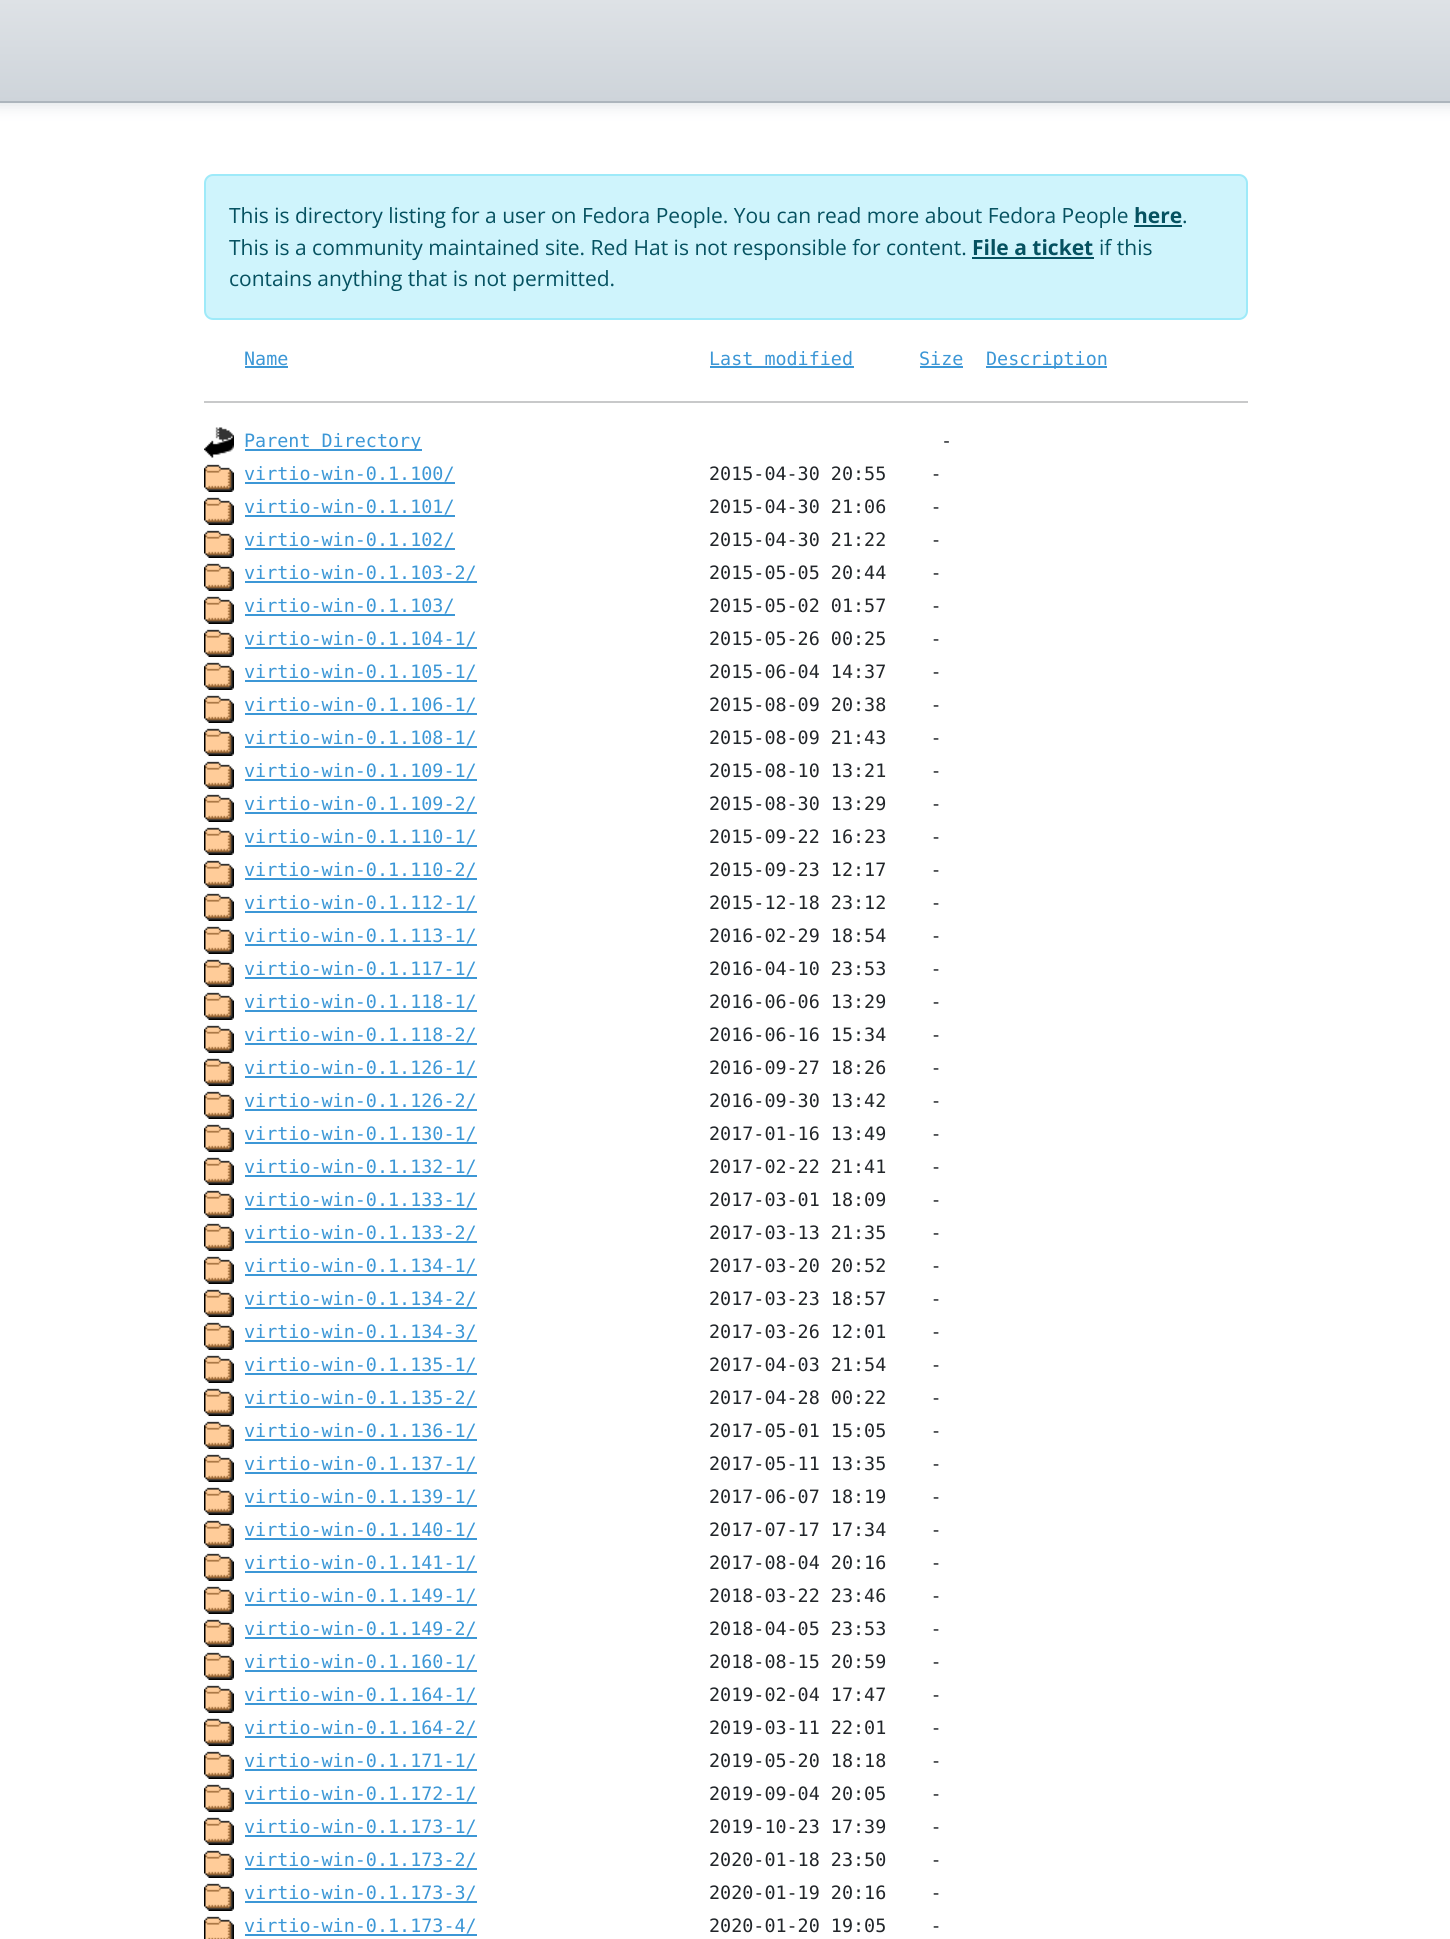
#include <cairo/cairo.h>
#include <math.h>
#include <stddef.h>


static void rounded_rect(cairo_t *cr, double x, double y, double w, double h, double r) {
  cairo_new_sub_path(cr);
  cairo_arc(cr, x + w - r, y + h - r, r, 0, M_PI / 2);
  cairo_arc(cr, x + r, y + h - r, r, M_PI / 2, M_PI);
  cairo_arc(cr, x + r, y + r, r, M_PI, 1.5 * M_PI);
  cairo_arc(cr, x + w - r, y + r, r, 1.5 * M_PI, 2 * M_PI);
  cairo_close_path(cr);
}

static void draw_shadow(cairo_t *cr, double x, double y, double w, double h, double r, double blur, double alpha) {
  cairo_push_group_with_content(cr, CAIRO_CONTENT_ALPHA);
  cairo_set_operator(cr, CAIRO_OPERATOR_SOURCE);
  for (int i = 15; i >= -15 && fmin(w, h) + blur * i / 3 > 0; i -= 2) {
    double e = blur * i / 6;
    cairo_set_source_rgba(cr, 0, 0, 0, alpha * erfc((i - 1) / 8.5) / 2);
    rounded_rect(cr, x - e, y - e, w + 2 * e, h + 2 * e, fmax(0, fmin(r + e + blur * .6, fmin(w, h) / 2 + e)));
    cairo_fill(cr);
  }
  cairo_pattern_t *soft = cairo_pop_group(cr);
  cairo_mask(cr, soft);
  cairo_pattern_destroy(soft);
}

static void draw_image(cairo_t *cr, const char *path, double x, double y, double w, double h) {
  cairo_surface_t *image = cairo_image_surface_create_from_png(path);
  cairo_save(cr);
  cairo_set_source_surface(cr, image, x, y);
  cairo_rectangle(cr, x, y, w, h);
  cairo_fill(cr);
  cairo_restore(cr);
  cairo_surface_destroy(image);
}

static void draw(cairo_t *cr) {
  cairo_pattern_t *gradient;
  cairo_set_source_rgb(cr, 1, 1, 1);
  cairo_paint(cr);
  cairo_set_source_rgb(cr, 222 / 255.0, 226 / 255.0, 230 / 255.0);
  draw_shadow(cr, -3, -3, 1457, 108, 0, 7.5, 1);
  gradient = cairo_pattern_create_linear(725, 0, 725, 101);
  cairo_pattern_add_color_stop_rgba(gradient, 0, 222 / 255.0, 226 / 255.0, 230 / 255.0, 1);
  cairo_pattern_add_color_stop_rgba(gradient, 1, 206 / 255.0, 212 / 255.0, 218 / 255.0, 1);
  cairo_set_source(cr, gradient);
  cairo_pattern_destroy(gradient);
  cairo_rectangle(cr, 0, 0, 1450, 101);
  cairo_fill(cr);
  cairo_set_source_rgb(cr, 173 / 255.0, 181 / 255.0, 189 / 255.0);
  cairo_rectangle(cr, 0, 101, 1450, 2);
  cairo_fill(cr);
  cairo_set_source_rgb(cr, 207 / 255.0, 244 / 255.0, 252 / 255.0);
  rounded_rect(cr, 205, 175, 1042, 144, 8);
  cairo_fill_preserve(cr);
  cairo_set_source_rgb(cr, 158 / 255.0, 234 / 255.0, 249 / 255.0);
  cairo_stroke(cr);
  cairo_set_source_rgb(cr, 5 / 255.0, 81 / 255.0, 96 / 255.0);
  cairo_rectangle(cr, 1134, 225, 48, 2);
  cairo_fill(cr);
  cairo_rectangle(cr, 972, 257, 122, 2);
  cairo_fill(cr);
  cairo_set_source_rgb(cr, 60 / 255.0, 151 / 255.0, 214 / 255.0);
  cairo_rectangle(cr, 245, 366, 43, 2);
  cairo_fill(cr);
  cairo_rectangle(cr, 710, 366, 144, 2);
  cairo_fill(cr);
  cairo_rectangle(cr, 920, 366, 43, 2);
  cairo_fill(cr);
  cairo_rectangle(cr, 986, 366, 121, 2);
  cairo_fill(cr);
  cairo_set_source_rgb(cr, 200 / 255.0, 201 / 255.0, 202 / 255.0);
  cairo_rectangle(cr, 204, 401, 1044, 2);
  cairo_fill(cr);
  draw_image(cr, "images/1.png", 204, 427, 30, 31);
  cairo_set_source_rgb(cr, 60 / 255.0, 151 / 255.0, 214 / 255.0);
  cairo_rectangle(cr, 245, 449, 177, 2);
  cairo_fill(cr);
  draw_image(cr, "images/2.png", 204, 464, 30, 28);
  cairo_rectangle(cr, 245, 482, 210, 2);
  cairo_fill(cr);
  draw_image(cr, "images/2.png", 204, 497, 30, 28);
  cairo_rectangle(cr, 245, 515, 210, 2);
  cairo_fill(cr);
  draw_image(cr, "images/2.png", 204, 530, 30, 28);
  cairo_rectangle(cr, 245, 548, 210, 2);
  cairo_fill(cr);
  draw_image(cr, "images/2.png", 204, 563, 30, 28);
  cairo_rectangle(cr, 245, 581, 232, 2);
  cairo_fill(cr);
  draw_image(cr, "images/2.png", 204, 596, 30, 28);
  cairo_rectangle(cr, 245, 614, 210, 2);
  cairo_fill(cr);
  draw_image(cr, "images/2.png", 204, 629, 30, 28);
  cairo_rectangle(cr, 245, 647, 232, 2);
  cairo_fill(cr);
  draw_image(cr, "images/2.png", 204, 662, 30, 28);
  cairo_rectangle(cr, 245, 680, 232, 2);
  cairo_fill(cr);
  draw_image(cr, "images/2.png", 204, 695, 30, 28);
  cairo_rectangle(cr, 245, 713, 232, 2);
  cairo_fill(cr);
  draw_image(cr, "images/2.png", 204, 728, 30, 28);
  cairo_rectangle(cr, 245, 746, 232, 2);
  cairo_fill(cr);
  draw_image(cr, "images/2.png", 204, 761, 30, 28);
  cairo_rectangle(cr, 245, 779, 232, 2);
  cairo_fill(cr);
  draw_image(cr, "images/2.png", 204, 794, 30, 28);
  cairo_rectangle(cr, 245, 812, 232, 2);
  cairo_fill(cr);
  draw_image(cr, "images/2.png", 204, 827, 30, 28);
  cairo_rectangle(cr, 245, 845, 232, 2);
  cairo_fill(cr);
  draw_image(cr, "images/2.png", 204, 860, 30, 28);
  cairo_rectangle(cr, 245, 878, 232, 2);
  cairo_fill(cr);
  draw_image(cr, "images/2.png", 204, 893, 30, 28);
  cairo_rectangle(cr, 245, 911, 232, 2);
  cairo_fill(cr);
  draw_image(cr, "images/2.png", 204, 926, 30, 28);
  cairo_rectangle(cr, 245, 944, 232, 2);
  cairo_fill(cr);
  draw_image(cr, "images/2.png", 204, 959, 30, 28);
  cairo_rectangle(cr, 245, 977, 232, 2);
  cairo_fill(cr);
  draw_image(cr, "images/2.png", 204, 992, 30, 28);
  cairo_rectangle(cr, 245, 1010, 232, 2);
  cairo_fill(cr);
  draw_image(cr, "images/2.png", 204, 1025, 30, 28);
  cairo_rectangle(cr, 245, 1043, 232, 2);
  cairo_fill(cr);
  draw_image(cr, "images/2.png", 204, 1058, 30, 28);
  cairo_rectangle(cr, 245, 1076, 232, 2);
  cairo_fill(cr);
  draw_image(cr, "images/2.png", 204, 1091, 30, 28);
  cairo_rectangle(cr, 245, 1109, 232, 2);
  cairo_fill(cr);
  draw_image(cr, "images/2.png", 204, 1124, 30, 28);
  cairo_rectangle(cr, 245, 1142, 232, 2);
  cairo_fill(cr);
  draw_image(cr, "images/2.png", 204, 1157, 30, 28);
  cairo_rectangle(cr, 245, 1175, 232, 2);
  cairo_fill(cr);
  draw_image(cr, "images/2.png", 204, 1190, 30, 28);
  cairo_rectangle(cr, 245, 1208, 232, 2);
  cairo_fill(cr);
  draw_image(cr, "images/2.png", 204, 1223, 30, 28);
  cairo_rectangle(cr, 245, 1241, 232, 2);
  cairo_fill(cr);
  draw_image(cr, "images/2.png", 204, 1256, 30, 28);
  cairo_rectangle(cr, 245, 1274, 232, 2);
  cairo_fill(cr);
  draw_image(cr, "images/2.png", 204, 1289, 30, 28);
  cairo_rectangle(cr, 245, 1307, 232, 2);
  cairo_fill(cr);
  draw_image(cr, "images/2.png", 204, 1322, 30, 28);
  cairo_rectangle(cr, 245, 1340, 232, 2);
  cairo_fill(cr);
  draw_image(cr, "images/2.png", 204, 1355, 30, 28);
  cairo_rectangle(cr, 245, 1373, 232, 2);
  cairo_fill(cr);
  draw_image(cr, "images/2.png", 204, 1388, 30, 28);
  cairo_rectangle(cr, 245, 1406, 232, 2);
  cairo_fill(cr);
  draw_image(cr, "images/2.png", 204, 1421, 30, 28);
  cairo_rectangle(cr, 245, 1439, 232, 2);
  cairo_fill(cr);
  draw_image(cr, "images/2.png", 204, 1454, 30, 28);
  cairo_rectangle(cr, 245, 1472, 232, 2);
  cairo_fill(cr);
  draw_image(cr, "images/2.png", 204, 1487, 30, 28);
  cairo_rectangle(cr, 245, 1505, 232, 2);
  cairo_fill(cr);
  draw_image(cr, "images/2.png", 204, 1520, 30, 28);
  cairo_rectangle(cr, 245, 1538, 232, 2);
  cairo_fill(cr);
  draw_image(cr, "images/2.png", 204, 1553, 30, 28);
  cairo_rectangle(cr, 245, 1571, 232, 2);
  cairo_fill(cr);
  draw_image(cr, "images/2.png", 204, 1586, 30, 28);
  cairo_rectangle(cr, 245, 1604, 232, 2);
  cairo_fill(cr);
  draw_image(cr, "images/2.png", 204, 1619, 30, 28);
  cairo_rectangle(cr, 245, 1637, 232, 2);
  cairo_fill(cr);
  draw_image(cr, "images/2.png", 204, 1652, 30, 28);
  cairo_rectangle(cr, 245, 1670, 232, 2);
  cairo_fill(cr);
  draw_image(cr, "images/2.png", 204, 1685, 30, 28);
  cairo_rectangle(cr, 245, 1703, 232, 2);
  cairo_fill(cr);
  draw_image(cr, "images/2.png", 204, 1718, 30, 28);
  cairo_rectangle(cr, 245, 1736, 232, 2);
  cairo_fill(cr);
  draw_image(cr, "images/2.png", 204, 1751, 30, 28);
  cairo_rectangle(cr, 245, 1769, 232, 2);
  cairo_fill(cr);
  draw_image(cr, "images/2.png", 204, 1784, 30, 28);
  cairo_rectangle(cr, 245, 1802, 232, 2);
  cairo_fill(cr);
  draw_image(cr, "images/2.png", 204, 1817, 30, 28);
  cairo_rectangle(cr, 245, 1835, 232, 2);
  cairo_fill(cr);
  draw_image(cr, "images/2.png", 204, 1850, 30, 28);
  cairo_rectangle(cr, 245, 1868, 232, 2);
  cairo_fill(cr);
  draw_image(cr, "images/2.png", 204, 1883, 30, 28);
  cairo_rectangle(cr, 245, 1901, 232, 2);
  cairo_fill(cr);
  draw_image(cr, "images/3.png", 204, 1916, 30, 23);
  cairo_rectangle(cr, 245, 1934, 232, 2);
  cairo_fill(cr);
  cairo_select_font_face(cr, "Open Sans", CAIRO_FONT_SLANT_NORMAL, CAIRO_FONT_WEIGHT_NORMAL);
  cairo_set_font_size(cr, 21);
  cairo_set_source_rgb(cr, 5 / 255.0, 81 / 255.0, 96 / 255.0);
  cairo_move_to(cr, 229, 223);
  cairo_show_text(cr, "This is directory listing for a user on Fedora People. You can read more about Fedora People");
  cairo_select_font_face(cr, "Open Sans", CAIRO_FONT_SLANT_NORMAL, CAIRO_FONT_WEIGHT_BOLD);
  cairo_move_to(cr, 1134, 223);
  cairo_show_text(cr, "here");
  cairo_select_font_face(cr, "Open Sans", CAIRO_FONT_SLANT_NORMAL, CAIRO_FONT_WEIGHT_NORMAL);
  cairo_move_to(cr, 1182, 223);
  cairo_show_text(cr, ".");
  cairo_move_to(cr, 229, 255);
  cairo_show_text(cr, "This is a community maintained site. Red Hat is not responsible for content.");
  cairo_select_font_face(cr, "Open Sans", CAIRO_FONT_SLANT_NORMAL, CAIRO_FONT_WEIGHT_BOLD);
  cairo_move_to(cr, 972, 255);
  cairo_show_text(cr, "File a ticket");
  cairo_select_font_face(cr, "Open Sans", CAIRO_FONT_SLANT_NORMAL, CAIRO_FONT_WEIGHT_NORMAL);
  cairo_move_to(cr, 1099, 255);
  cairo_show_text(cr, "if this");
  cairo_move_to(cr, 229, 286);
  cairo_show_text(cr, "contains anything that is not permitted.");
  cairo_select_font_face(cr, "DejaVu Sans Mono", CAIRO_FONT_SLANT_NORMAL, CAIRO_FONT_WEIGHT_NORMAL);
  cairo_set_font_size(cr, 18.4);
  cairo_set_source_rgb(cr, 60 / 255.0, 151 / 255.0, 214 / 255.0);
  cairo_move_to(cr, 244, 365);
  cairo_show_text(cr, "Name");
  cairo_move_to(cr, 709, 365);
  cairo_show_text(cr, "Last modified");
  cairo_move_to(cr, 919, 365);
  cairo_show_text(cr, "Size");
  cairo_move_to(cr, 986, 365);
  cairo_show_text(cr, "Description");
  cairo_move_to(cr, 244, 447);
  cairo_show_text(cr, "Parent Directory");
  cairo_set_source_rgb(cr, 33 / 255.0, 37 / 255.0, 41 / 255.0);
  cairo_move_to(cr, 941, 447);
  cairo_show_text(cr, "-");
  cairo_set_source_rgb(cr, 60 / 255.0, 151 / 255.0, 214 / 255.0);
  cairo_move_to(cr, 244, 480);
  cairo_show_text(cr, "virtio-win-0.1.100/");
  cairo_set_source_rgb(cr, 33 / 255.0, 37 / 255.0, 41 / 255.0);
  cairo_move_to(cr, 709, 480);
  cairo_show_text(cr, "2015-04-30 20:55    -");
  cairo_set_source_rgb(cr, 60 / 255.0, 151 / 255.0, 214 / 255.0);
  cairo_move_to(cr, 244, 513);
  cairo_show_text(cr, "virtio-win-0.1.101/");
  cairo_set_source_rgb(cr, 33 / 255.0, 37 / 255.0, 41 / 255.0);
  cairo_move_to(cr, 709, 513);
  cairo_show_text(cr, "2015-04-30 21:06    -");
  cairo_set_source_rgb(cr, 60 / 255.0, 151 / 255.0, 214 / 255.0);
  cairo_move_to(cr, 244, 546);
  cairo_show_text(cr, "virtio-win-0.1.102/");
  cairo_set_source_rgb(cr, 33 / 255.0, 37 / 255.0, 41 / 255.0);
  cairo_move_to(cr, 709, 546);
  cairo_show_text(cr, "2015-04-30 21:22    -");
  cairo_set_source_rgb(cr, 60 / 255.0, 151 / 255.0, 214 / 255.0);
  cairo_move_to(cr, 244, 579);
  cairo_show_text(cr, "virtio-win-0.1.103-2/");
  cairo_set_source_rgb(cr, 33 / 255.0, 37 / 255.0, 41 / 255.0);
  cairo_move_to(cr, 709, 579);
  cairo_show_text(cr, "2015-05-05 20:44    -");
  cairo_set_source_rgb(cr, 60 / 255.0, 151 / 255.0, 214 / 255.0);
  cairo_move_to(cr, 244, 612);
  cairo_show_text(cr, "virtio-win-0.1.103/");
  cairo_set_source_rgb(cr, 33 / 255.0, 37 / 255.0, 41 / 255.0);
  cairo_move_to(cr, 709, 612);
  cairo_show_text(cr, "2015-05-02 01:57    -");
  cairo_set_source_rgb(cr, 60 / 255.0, 151 / 255.0, 214 / 255.0);
  cairo_move_to(cr, 244, 645);
  cairo_show_text(cr, "virtio-win-0.1.104-1/");
  cairo_set_source_rgb(cr, 33 / 255.0, 37 / 255.0, 41 / 255.0);
  cairo_move_to(cr, 709, 645);
  cairo_show_text(cr, "2015-05-26 00:25    -");
  cairo_set_source_rgb(cr, 60 / 255.0, 151 / 255.0, 214 / 255.0);
  cairo_move_to(cr, 244, 678);
  cairo_show_text(cr, "virtio-win-0.1.105-1/");
  cairo_set_source_rgb(cr, 33 / 255.0, 37 / 255.0, 41 / 255.0);
  cairo_move_to(cr, 709, 678);
  cairo_show_text(cr, "2015-06-04 14:37    -");
  cairo_set_source_rgb(cr, 60 / 255.0, 151 / 255.0, 214 / 255.0);
  cairo_move_to(cr, 244, 711);
  cairo_show_text(cr, "virtio-win-0.1.106-1/");
  cairo_set_source_rgb(cr, 33 / 255.0, 37 / 255.0, 41 / 255.0);
  cairo_move_to(cr, 709, 711);
  cairo_show_text(cr, "2015-08-09 20:38    -");
  cairo_set_source_rgb(cr, 60 / 255.0, 151 / 255.0, 214 / 255.0);
  cairo_move_to(cr, 244, 744);
  cairo_show_text(cr, "virtio-win-0.1.108-1/");
  cairo_set_source_rgb(cr, 33 / 255.0, 37 / 255.0, 41 / 255.0);
  cairo_move_to(cr, 709, 744);
  cairo_show_text(cr, "2015-08-09 21:43    -");
  cairo_set_source_rgb(cr, 60 / 255.0, 151 / 255.0, 214 / 255.0);
  cairo_move_to(cr, 244, 777);
  cairo_show_text(cr, "virtio-win-0.1.109-1/");
  cairo_set_source_rgb(cr, 33 / 255.0, 37 / 255.0, 41 / 255.0);
  cairo_move_to(cr, 709, 777);
  cairo_show_text(cr, "2015-08-10 13:21    -");
  cairo_set_source_rgb(cr, 60 / 255.0, 151 / 255.0, 214 / 255.0);
  cairo_move_to(cr, 244, 810);
  cairo_show_text(cr, "virtio-win-0.1.109-2/");
  cairo_set_source_rgb(cr, 33 / 255.0, 37 / 255.0, 41 / 255.0);
  cairo_move_to(cr, 709, 810);
  cairo_show_text(cr, "2015-08-30 13:29    -");
  cairo_set_source_rgb(cr, 60 / 255.0, 151 / 255.0, 214 / 255.0);
  cairo_move_to(cr, 244, 843);
  cairo_show_text(cr, "virtio-win-0.1.110-1/");
  cairo_set_source_rgb(cr, 33 / 255.0, 37 / 255.0, 41 / 255.0);
  cairo_move_to(cr, 709, 843);
  cairo_show_text(cr, "2015-09-22 16:23    -");
  cairo_set_source_rgb(cr, 60 / 255.0, 151 / 255.0, 214 / 255.0);
  cairo_move_to(cr, 244, 876);
  cairo_show_text(cr, "virtio-win-0.1.110-2/");
  cairo_set_source_rgb(cr, 33 / 255.0, 37 / 255.0, 41 / 255.0);
  cairo_move_to(cr, 709, 876);
  cairo_show_text(cr, "2015-09-23 12:17    -");
  cairo_set_source_rgb(cr, 60 / 255.0, 151 / 255.0, 214 / 255.0);
  cairo_move_to(cr, 244, 909);
  cairo_show_text(cr, "virtio-win-0.1.112-1/");
  cairo_set_source_rgb(cr, 33 / 255.0, 37 / 255.0, 41 / 255.0);
  cairo_move_to(cr, 709, 909);
  cairo_show_text(cr, "2015-12-18 23:12    -");
  cairo_set_source_rgb(cr, 60 / 255.0, 151 / 255.0, 214 / 255.0);
  cairo_move_to(cr, 244, 942);
  cairo_show_text(cr, "virtio-win-0.1.113-1/");
  cairo_set_source_rgb(cr, 33 / 255.0, 37 / 255.0, 41 / 255.0);
  cairo_move_to(cr, 709, 942);
  cairo_show_text(cr, "2016-02-29 18:54    -");
  cairo_set_source_rgb(cr, 60 / 255.0, 151 / 255.0, 214 / 255.0);
  cairo_move_to(cr, 244, 975);
  cairo_show_text(cr, "virtio-win-0.1.117-1/");
  cairo_set_source_rgb(cr, 33 / 255.0, 37 / 255.0, 41 / 255.0);
  cairo_move_to(cr, 709, 975);
  cairo_show_text(cr, "2016-04-10 23:53    -");
  cairo_set_source_rgb(cr, 60 / 255.0, 151 / 255.0, 214 / 255.0);
  cairo_move_to(cr, 244, 1008);
  cairo_show_text(cr, "virtio-win-0.1.118-1/");
  cairo_set_source_rgb(cr, 33 / 255.0, 37 / 255.0, 41 / 255.0);
  cairo_move_to(cr, 709, 1008);
  cairo_show_text(cr, "2016-06-06 13:29    -");
  cairo_set_source_rgb(cr, 60 / 255.0, 151 / 255.0, 214 / 255.0);
  cairo_move_to(cr, 244, 1041);
  cairo_show_text(cr, "virtio-win-0.1.118-2/");
  cairo_set_source_rgb(cr, 33 / 255.0, 37 / 255.0, 41 / 255.0);
  cairo_move_to(cr, 709, 1041);
  cairo_show_text(cr, "2016-06-16 15:34    -");
  cairo_set_source_rgb(cr, 60 / 255.0, 151 / 255.0, 214 / 255.0);
  cairo_move_to(cr, 244, 1074);
  cairo_show_text(cr, "virtio-win-0.1.126-1/");
  cairo_set_source_rgb(cr, 33 / 255.0, 37 / 255.0, 41 / 255.0);
  cairo_move_to(cr, 709, 1074);
  cairo_show_text(cr, "2016-09-27 18:26    -");
  cairo_set_source_rgb(cr, 60 / 255.0, 151 / 255.0, 214 / 255.0);
  cairo_move_to(cr, 244, 1107);
  cairo_show_text(cr, "virtio-win-0.1.126-2/");
  cairo_set_source_rgb(cr, 33 / 255.0, 37 / 255.0, 41 / 255.0);
  cairo_move_to(cr, 709, 1107);
  cairo_show_text(cr, "2016-09-30 13:42    -");
  cairo_set_source_rgb(cr, 60 / 255.0, 151 / 255.0, 214 / 255.0);
  cairo_move_to(cr, 244, 1140);
  cairo_show_text(cr, "virtio-win-0.1.130-1/");
  cairo_set_source_rgb(cr, 33 / 255.0, 37 / 255.0, 41 / 255.0);
  cairo_move_to(cr, 709, 1140);
  cairo_show_text(cr, "2017-01-16 13:49    -");
  cairo_set_source_rgb(cr, 60 / 255.0, 151 / 255.0, 214 / 255.0);
  cairo_move_to(cr, 244, 1173);
  cairo_show_text(cr, "virtio-win-0.1.132-1/");
  cairo_set_source_rgb(cr, 33 / 255.0, 37 / 255.0, 41 / 255.0);
  cairo_move_to(cr, 709, 1173);
  cairo_show_text(cr, "2017-02-22 21:41    -");
  cairo_set_source_rgb(cr, 60 / 255.0, 151 / 255.0, 214 / 255.0);
  cairo_move_to(cr, 244, 1206);
  cairo_show_text(cr, "virtio-win-0.1.133-1/");
  cairo_set_source_rgb(cr, 33 / 255.0, 37 / 255.0, 41 / 255.0);
  cairo_move_to(cr, 709, 1206);
  cairo_show_text(cr, "2017-03-01 18:09    -");
  cairo_set_source_rgb(cr, 60 / 255.0, 151 / 255.0, 214 / 255.0);
  cairo_move_to(cr, 244, 1239);
  cairo_show_text(cr, "virtio-win-0.1.133-2/");
  cairo_set_source_rgb(cr, 33 / 255.0, 37 / 255.0, 41 / 255.0);
  cairo_move_to(cr, 709, 1239);
  cairo_show_text(cr, "2017-03-13 21:35    -");
  cairo_set_source_rgb(cr, 60 / 255.0, 151 / 255.0, 214 / 255.0);
  cairo_move_to(cr, 244, 1272);
  cairo_show_text(cr, "virtio-win-0.1.134-1/");
  cairo_set_source_rgb(cr, 33 / 255.0, 37 / 255.0, 41 / 255.0);
  cairo_move_to(cr, 709, 1272);
  cairo_show_text(cr, "2017-03-20 20:52    -");
  cairo_set_source_rgb(cr, 60 / 255.0, 151 / 255.0, 214 / 255.0);
  cairo_move_to(cr, 244, 1305);
  cairo_show_text(cr, "virtio-win-0.1.134-2/");
  cairo_set_source_rgb(cr, 33 / 255.0, 37 / 255.0, 41 / 255.0);
  cairo_move_to(cr, 709, 1305);
  cairo_show_text(cr, "2017-03-23 18:57    -");
  cairo_set_source_rgb(cr, 60 / 255.0, 151 / 255.0, 214 / 255.0);
  cairo_move_to(cr, 244, 1338);
  cairo_show_text(cr, "virtio-win-0.1.134-3/");
  cairo_set_source_rgb(cr, 33 / 255.0, 37 / 255.0, 41 / 255.0);
  cairo_move_to(cr, 709, 1338);
  cairo_show_text(cr, "2017-03-26 12:01    -");
  cairo_set_source_rgb(cr, 60 / 255.0, 151 / 255.0, 214 / 255.0);
  cairo_move_to(cr, 244, 1371);
  cairo_show_text(cr, "virtio-win-0.1.135-1/");
  cairo_set_source_rgb(cr, 33 / 255.0, 37 / 255.0, 41 / 255.0);
  cairo_move_to(cr, 709, 1371);
  cairo_show_text(cr, "2017-04-03 21:54    -");
  cairo_set_source_rgb(cr, 60 / 255.0, 151 / 255.0, 214 / 255.0);
  cairo_move_to(cr, 244, 1404);
  cairo_show_text(cr, "virtio-win-0.1.135-2/");
  cairo_set_source_rgb(cr, 33 / 255.0, 37 / 255.0, 41 / 255.0);
  cairo_move_to(cr, 709, 1404);
  cairo_show_text(cr, "2017-04-28 00:22    -");
  cairo_set_source_rgb(cr, 60 / 255.0, 151 / 255.0, 214 / 255.0);
  cairo_move_to(cr, 244, 1437);
  cairo_show_text(cr, "virtio-win-0.1.136-1/");
  cairo_set_source_rgb(cr, 33 / 255.0, 37 / 255.0, 41 / 255.0);
  cairo_move_to(cr, 709, 1437);
  cairo_show_text(cr, "2017-05-01 15:05    -");
  cairo_set_source_rgb(cr, 60 / 255.0, 151 / 255.0, 214 / 255.0);
  cairo_move_to(cr, 244, 1470);
  cairo_show_text(cr, "virtio-win-0.1.137-1/");
  cairo_set_source_rgb(cr, 33 / 255.0, 37 / 255.0, 41 / 255.0);
  cairo_move_to(cr, 709, 1470);
  cairo_show_text(cr, "2017-05-11 13:35    -");
  cairo_set_source_rgb(cr, 60 / 255.0, 151 / 255.0, 214 / 255.0);
  cairo_move_to(cr, 244, 1503);
  cairo_show_text(cr, "virtio-win-0.1.139-1/");
  cairo_set_source_rgb(cr, 33 / 255.0, 37 / 255.0, 41 / 255.0);
  cairo_move_to(cr, 709, 1503);
  cairo_show_text(cr, "2017-06-07 18:19    -");
  cairo_set_source_rgb(cr, 60 / 255.0, 151 / 255.0, 214 / 255.0);
  cairo_move_to(cr, 244, 1536);
  cairo_show_text(cr, "virtio-win-0.1.140-1/");
  cairo_set_source_rgb(cr, 33 / 255.0, 37 / 255.0, 41 / 255.0);
  cairo_move_to(cr, 709, 1536);
  cairo_show_text(cr, "2017-07-17 17:34    -");
  cairo_set_source_rgb(cr, 60 / 255.0, 151 / 255.0, 214 / 255.0);
  cairo_move_to(cr, 244, 1569);
  cairo_show_text(cr, "virtio-win-0.1.141-1/");
  cairo_set_source_rgb(cr, 33 / 255.0, 37 / 255.0, 41 / 255.0);
  cairo_move_to(cr, 709, 1569);
  cairo_show_text(cr, "2017-08-04 20:16    -");
  cairo_set_source_rgb(cr, 60 / 255.0, 151 / 255.0, 214 / 255.0);
  cairo_move_to(cr, 244, 1602);
  cairo_show_text(cr, "virtio-win-0.1.149-1/");
  cairo_set_source_rgb(cr, 33 / 255.0, 37 / 255.0, 41 / 255.0);
  cairo_move_to(cr, 709, 1602);
  cairo_show_text(cr, "2018-03-22 23:46    -");
  cairo_set_source_rgb(cr, 60 / 255.0, 151 / 255.0, 214 / 255.0);
  cairo_move_to(cr, 244, 1635);
  cairo_show_text(cr, "virtio-win-0.1.149-2/");
  cairo_set_source_rgb(cr, 33 / 255.0, 37 / 255.0, 41 / 255.0);
  cairo_move_to(cr, 709, 1635);
  cairo_show_text(cr, "2018-04-05 23:53    -");
  cairo_set_source_rgb(cr, 60 / 255.0, 151 / 255.0, 214 / 255.0);
  cairo_move_to(cr, 244, 1668);
  cairo_show_text(cr, "virtio-win-0.1.160-1/");
  cairo_set_source_rgb(cr, 33 / 255.0, 37 / 255.0, 41 / 255.0);
  cairo_move_to(cr, 709, 1668);
  cairo_show_text(cr, "2018-08-15 20:59    -");
  cairo_set_source_rgb(cr, 60 / 255.0, 151 / 255.0, 214 / 255.0);
  cairo_move_to(cr, 244, 1701);
  cairo_show_text(cr, "virtio-win-0.1.164-1/");
  cairo_set_source_rgb(cr, 33 / 255.0, 37 / 255.0, 41 / 255.0);
  cairo_move_to(cr, 709, 1701);
  cairo_show_text(cr, "2019-02-04 17:47    -");
  cairo_set_source_rgb(cr, 60 / 255.0, 151 / 255.0, 214 / 255.0);
  cairo_move_to(cr, 244, 1734);
  cairo_show_text(cr, "virtio-win-0.1.164-2/");
  cairo_set_source_rgb(cr, 33 / 255.0, 37 / 255.0, 41 / 255.0);
  cairo_move_to(cr, 709, 1734);
  cairo_show_text(cr, "2019-03-11 22:01    -");
  cairo_set_source_rgb(cr, 60 / 255.0, 151 / 255.0, 214 / 255.0);
  cairo_move_to(cr, 244, 1767);
  cairo_show_text(cr, "virtio-win-0.1.171-1/");
  cairo_set_source_rgb(cr, 33 / 255.0, 37 / 255.0, 41 / 255.0);
  cairo_move_to(cr, 709, 1767);
  cairo_show_text(cr, "2019-05-20 18:18    -");
  cairo_set_source_rgb(cr, 60 / 255.0, 151 / 255.0, 214 / 255.0);
  cairo_move_to(cr, 244, 1800);
  cairo_show_text(cr, "virtio-win-0.1.172-1/");
  cairo_set_source_rgb(cr, 33 / 255.0, 37 / 255.0, 41 / 255.0);
  cairo_move_to(cr, 709, 1800);
  cairo_show_text(cr, "2019-09-04 20:05    -");
  cairo_set_source_rgb(cr, 60 / 255.0, 151 / 255.0, 214 / 255.0);
  cairo_move_to(cr, 244, 1833);
  cairo_show_text(cr, "virtio-win-0.1.173-1/");
  cairo_set_source_rgb(cr, 33 / 255.0, 37 / 255.0, 41 / 255.0);
  cairo_move_to(cr, 709, 1833);
  cairo_show_text(cr, "2019-10-23 17:39    -");
  cairo_set_source_rgb(cr, 60 / 255.0, 151 / 255.0, 214 / 255.0);
  cairo_move_to(cr, 244, 1866);
  cairo_show_text(cr, "virtio-win-0.1.173-2/");
  cairo_set_source_rgb(cr, 33 / 255.0, 37 / 255.0, 41 / 255.0);
  cairo_move_to(cr, 709, 1866);
  cairo_show_text(cr, "2020-01-18 23:50    -");
  cairo_set_source_rgb(cr, 60 / 255.0, 151 / 255.0, 214 / 255.0);
  cairo_move_to(cr, 244, 1899);
  cairo_show_text(cr, "virtio-win-0.1.173-3/");
  cairo_set_source_rgb(cr, 33 / 255.0, 37 / 255.0, 41 / 255.0);
  cairo_move_to(cr, 709, 1899);
  cairo_show_text(cr, "2020-01-19 20:16    -");
  cairo_set_source_rgb(cr, 60 / 255.0, 151 / 255.0, 214 / 255.0);
  cairo_move_to(cr, 244, 1932);
  cairo_show_text(cr, "virtio-win-0.1.173-4/");
  cairo_set_source_rgb(cr, 33 / 255.0, 37 / 255.0, 41 / 255.0);
  cairo_move_to(cr, 709, 1932);
  cairo_show_text(cr, "2020-01-20 19:05    -");
}

int main(void) {
  cairo_surface_t *surface = cairo_image_surface_create(CAIRO_FORMAT_RGB24, 1450, 1939);
  cairo_t *cr = cairo_create(surface);
  cairo_font_options_t *options = cairo_font_options_create();
  cairo_font_options_set_hint_metrics(options, CAIRO_HINT_METRICS_OFF);
  cairo_font_options_set_hint_style(options, CAIRO_HINT_STYLE_NONE);
  cairo_set_font_options(cr, options);
  cairo_set_miter_limit(cr, 4);
  draw(cr);
  cairo_surface_write_to_png(surface, "out.png");
  cairo_font_options_destroy(options);
  cairo_destroy(cr);
  cairo_surface_destroy(surface);
  return 0;
}
